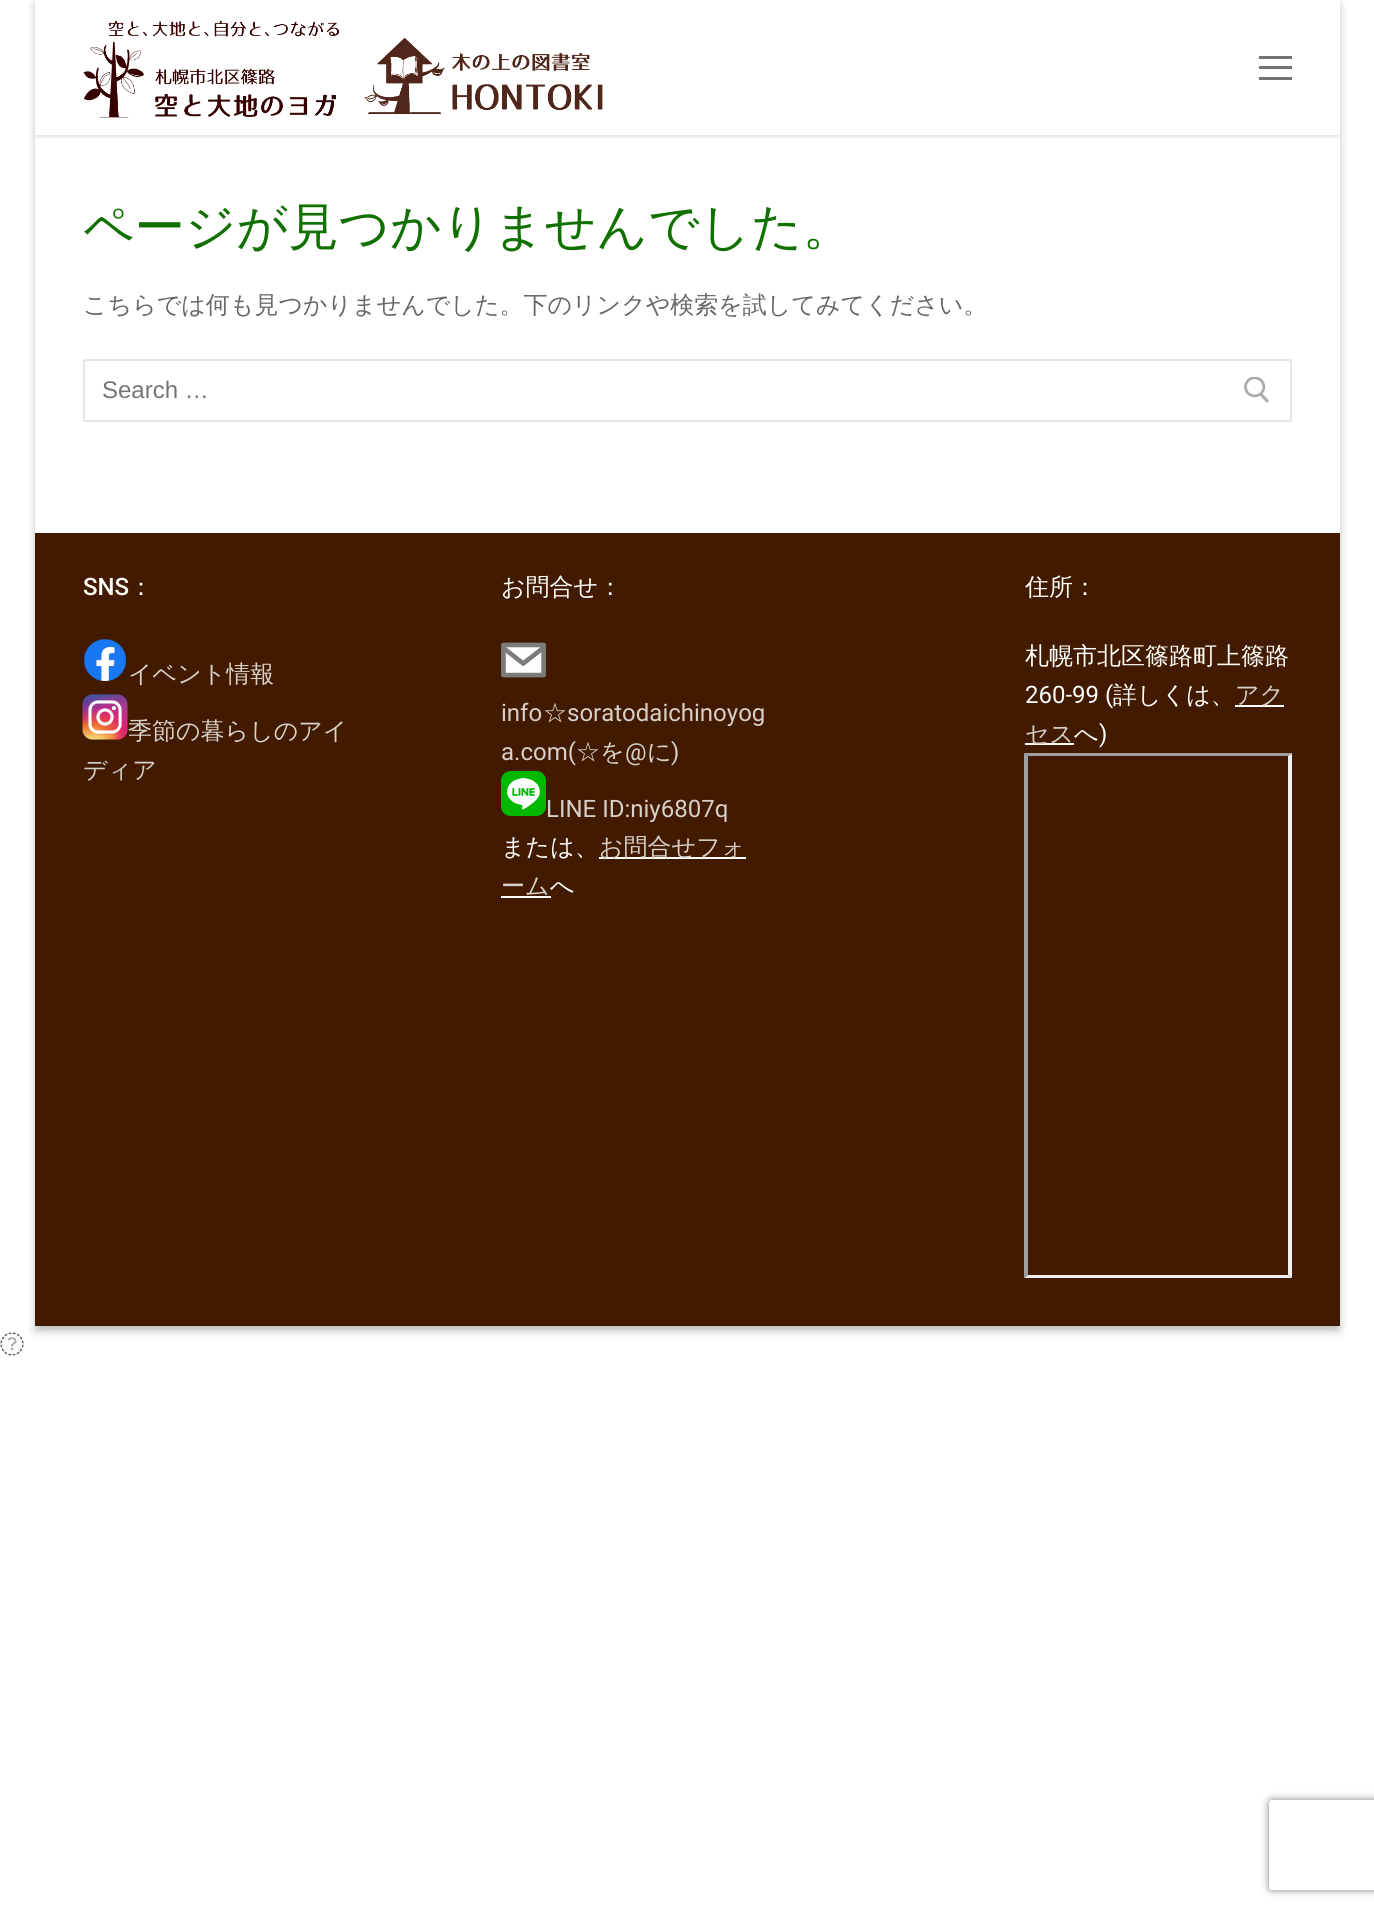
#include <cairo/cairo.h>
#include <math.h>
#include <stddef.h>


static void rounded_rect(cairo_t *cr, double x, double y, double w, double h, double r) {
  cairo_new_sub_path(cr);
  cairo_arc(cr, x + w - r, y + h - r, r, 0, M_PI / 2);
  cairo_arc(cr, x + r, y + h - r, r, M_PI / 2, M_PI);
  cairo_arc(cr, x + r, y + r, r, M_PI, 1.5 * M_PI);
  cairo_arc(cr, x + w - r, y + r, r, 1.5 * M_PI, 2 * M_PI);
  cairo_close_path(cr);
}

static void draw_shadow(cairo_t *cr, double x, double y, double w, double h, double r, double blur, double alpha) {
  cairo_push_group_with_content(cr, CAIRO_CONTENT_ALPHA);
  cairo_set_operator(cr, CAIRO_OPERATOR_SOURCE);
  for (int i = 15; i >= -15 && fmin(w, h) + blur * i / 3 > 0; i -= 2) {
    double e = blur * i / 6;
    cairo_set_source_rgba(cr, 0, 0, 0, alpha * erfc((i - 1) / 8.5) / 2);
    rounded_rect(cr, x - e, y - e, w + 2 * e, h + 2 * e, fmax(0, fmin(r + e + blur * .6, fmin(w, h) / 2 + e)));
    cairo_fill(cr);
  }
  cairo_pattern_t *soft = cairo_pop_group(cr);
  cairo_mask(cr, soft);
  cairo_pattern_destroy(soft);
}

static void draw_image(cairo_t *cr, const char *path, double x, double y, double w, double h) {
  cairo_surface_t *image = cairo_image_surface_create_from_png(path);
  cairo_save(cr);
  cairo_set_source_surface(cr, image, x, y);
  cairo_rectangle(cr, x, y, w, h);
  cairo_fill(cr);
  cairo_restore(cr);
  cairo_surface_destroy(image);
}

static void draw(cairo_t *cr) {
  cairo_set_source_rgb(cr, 1, 1, 1);
  cairo_paint(cr);
  draw_image(cr, "images/7.png", 0, 1332, 24, 24);
  cairo_set_source_rgb(cr, 0, 0, 0);
  draw_shadow(cr, 35, 5, 1305, 1326, 0, 4.5, 0.23);
  draw_shadow(cr, 41, 11, 1293, 1314, 0, 4.5, 0.16);
  cairo_set_source_rgb(cr, 1, 1, 1);
  cairo_rectangle(cr, 35, 135, 1305, 398);
  cairo_fill(cr);
  cairo_set_source_rgb(cr, 225 / 255.0, 229 / 255.0, 234 / 255.0);
  draw_shadow(cr, 35, 2, 1305, 135, 0, 1.5, 1);
  cairo_set_source_rgb(cr, 1, 1, 1);
  cairo_rectangle(cr, 35, 0, 1305, 135);
  cairo_fill(cr);
  draw_image(cr, "images/1.png", 83, 20, 520, 98);
  cairo_set_source_rgb(cr, 115 / 255.0, 115 / 255.0, 115 / 255.0);
  cairo_rectangle(cr, 1259, 66, 33, 3);
  cairo_fill(cr);
  cairo_rectangle(cr, 1259, 56, 33, 3);
  cairo_fill(cr);
  cairo_rectangle(cr, 1259, 77, 33, 3);
  cairo_fill(cr);
  rounded_rect(cr, 84, 360, 1207, 61, 0.5);
  cairo_set_source_rgb(cr, 229 / 255.0, 229 / 255.0, 229 / 255.0);
  cairo_stroke(cr);
  draw_image(cr, "images/2.png", 1244, 377, 25, 26);
  cairo_set_source_rgb(cr, 66 / 255.0, 26 / 255.0, 0);
  cairo_rectangle(cr, 35, 533, 1305, 793);
  cairo_fill(cr);
  draw_image(cr, "images/3.png", 84, 639, 42, 42);
  draw_image(cr, "images/4.png", 82, 694, 46, 46);
  draw_image(cr, "images/5.png", 501, 642, 45, 36);
  draw_image(cr, "images/6.png", 501, 771, 45, 45);
  cairo_set_source_rgb(cr, 253 / 255.0, 253 / 255.0, 252 / 255.0);
  cairo_rectangle(cr, 599, 857, 147, 2);
  cairo_fill(cr);
  cairo_rectangle(cr, 501, 896, 50, 2);
  cairo_fill(cr);
  cairo_rectangle(cr, 1235, 705, 49, 2);
  cairo_fill(cr);
  cairo_rectangle(cr, 1025, 743, 49, 2);
  cairo_fill(cr);
  cairo_set_source_rgb(cr, 159 / 255.0, 159 / 255.0, 159 / 255.0);
  cairo_new_path(cr);
  cairo_move_to(cr, 1024, 753);
  cairo_line_to(cr, 1292, 753);
  cairo_line_to(cr, 1288, 756);
  cairo_line_to(cr, 1028, 756);
  cairo_close_path(cr);
  cairo_fill(cr);
  cairo_set_source_rgb(cr, 238 / 255.0, 238 / 255.0, 238 / 255.0);
  cairo_new_path(cr);
  cairo_move_to(cr, 1292, 753);
  cairo_line_to(cr, 1292, 1278);
  cairo_line_to(cr, 1288, 1275);
  cairo_line_to(cr, 1288, 756);
  cairo_close_path(cr);
  cairo_fill(cr);
  cairo_new_path(cr);
  cairo_move_to(cr, 1292, 1278);
  cairo_line_to(cr, 1024, 1278);
  cairo_line_to(cr, 1028, 1275);
  cairo_line_to(cr, 1288, 1275);
  cairo_close_path(cr);
  cairo_fill(cr);
  cairo_set_source_rgb(cr, 159 / 255.0, 159 / 255.0, 159 / 255.0);
  cairo_new_path(cr);
  cairo_move_to(cr, 1024, 1278);
  cairo_line_to(cr, 1024, 753);
  cairo_line_to(cr, 1028, 756);
  cairo_line_to(cr, 1028, 1275);
  cairo_close_path(cr);
  cairo_fill(cr);
  cairo_save(cr);
  cairo_set_fill_rule(cr, CAIRO_FILL_RULE_EVEN_ODD);
  cairo_new_path(cr);
  cairo_move_to(cr, 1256, 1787);
  cairo_line_to(cr, 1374, 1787);
  cairo_line_to(cr, 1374, 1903);
  cairo_line_to(cr, 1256, 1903);
  cairo_close_path(cr);
  cairo_move_to(cr, 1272, 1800);
  cairo_line_to(cr, 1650, 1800);
  cairo_curve_to(cr, 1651.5, 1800, 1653, 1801.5, 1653, 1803);
  cairo_line_to(cr, 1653, 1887);
  cairo_curve_to(cr, 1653, 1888.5, 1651.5, 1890, 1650, 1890);
  cairo_line_to(cr, 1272, 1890);
  cairo_curve_to(cr, 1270.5, 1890, 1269, 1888.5, 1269, 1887);
  cairo_line_to(cr, 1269, 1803);
  cairo_curve_to(cr, 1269, 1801.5, 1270.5, 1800, 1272, 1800);
  cairo_close_path(cr);
  cairo_clip(cr);
  cairo_set_source_rgb(cr, 128 / 255.0, 128 / 255.0, 128 / 255.0);
  draw_shadow(cr, 1269, 1800, 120, 90, 3, 4, 1);
  cairo_restore(cr);
  cairo_select_font_face(cr, "WenQuanYi Zen Hei Medium", CAIRO_FONT_SLANT_NORMAL, CAIRO_FONT_WEIGHT_NORMAL);
  cairo_set_font_size(cr, 50.4);
  cairo_set_source_rgb(cr, 16 / 255.0, 112 / 255.0, 0);
  cairo_move_to(cr, 83, 244);
  cairo_show_text(cr, "ページが見つかりませんでした。");
  cairo_set_font_size(cr, 24);
  cairo_set_source_rgb(cr, 104 / 255.0, 104 / 255.0, 104 / 255.0);
  cairo_move_to(cr, 83, 313);
  cairo_show_text(cr, "こちらでは何も見つかりませんでした。下のリンクや検索を試してみてください。");
  cairo_select_font_face(cr, "Liberation Sans", CAIRO_FONT_SLANT_NORMAL, CAIRO_FONT_WEIGHT_NORMAL);
  cairo_set_source_rgb(cr, 117 / 255.0, 117 / 255.0, 117 / 255.0);
  cairo_move_to(cr, 102, 398);
  cairo_show_text(cr, "Search …");
  cairo_select_font_face(cr, "Roboto Medium", CAIRO_FONT_SLANT_NORMAL, CAIRO_FONT_WEIGHT_NORMAL);
  cairo_set_source_rgb(cr, 253 / 255.0, 253 / 255.0, 252 / 255.0);
  cairo_move_to(cr, 83, 595);
  cairo_show_text(cr, "SNS");
  cairo_select_font_face(cr, "WenQuanYi Zen Hei Medium", CAIRO_FONT_SLANT_NORMAL, CAIRO_FONT_WEIGHT_NORMAL);
  cairo_move_to(cr, 129, 595);
  cairo_show_text(cr, "：");
  cairo_set_source_rgb(cr, 215 / 255.0, 207 / 255.0, 201 / 255.0);
  cairo_move_to(cr, 128, 682);
  cairo_show_text(cr, "イベント情報");
  cairo_move_to(cr, 128, 739);
  cairo_show_text(cr, "季節の暮らしのアイ");
  cairo_move_to(cr, 83, 778);
  cairo_show_text(cr, "ディア");
  cairo_set_source_rgb(cr, 253 / 255.0, 253 / 255.0, 252 / 255.0);
  cairo_move_to(cr, 501, 595);
  cairo_show_text(cr, "お問合せ：");
  cairo_select_font_face(cr, "Roboto", CAIRO_FONT_SLANT_NORMAL, CAIRO_FONT_WEIGHT_NORMAL);
  cairo_set_source_rgb(cr, 215 / 255.0, 207 / 255.0, 201 / 255.0);
  cairo_move_to(cr, 501, 721);
  cairo_show_text(cr, "info");
  cairo_select_font_face(cr, "WenQuanYi Zen Hei Medium", CAIRO_FONT_SLANT_NORMAL, CAIRO_FONT_WEIGHT_NORMAL);
  cairo_move_to(cr, 543, 721);
  cairo_show_text(cr, "☆");
  cairo_select_font_face(cr, "Roboto", CAIRO_FONT_SLANT_NORMAL, CAIRO_FONT_WEIGHT_NORMAL);
  cairo_move_to(cr, 567, 721);
  cairo_show_text(cr, "soratodaichinoyog");
  cairo_move_to(cr, 501, 760);
  cairo_show_text(cr, "a.com(");
  cairo_select_font_face(cr, "WenQuanYi Zen Hei Medium", CAIRO_FONT_SLANT_NORMAL, CAIRO_FONT_WEIGHT_NORMAL);
  cairo_move_to(cr, 576, 760);
  cairo_show_text(cr, "☆を");
  cairo_select_font_face(cr, "Roboto", CAIRO_FONT_SLANT_NORMAL, CAIRO_FONT_WEIGHT_NORMAL);
  cairo_move_to(cr, 625, 760);
  cairo_show_text(cr, "@");
  cairo_select_font_face(cr, "WenQuanYi Zen Hei Medium", CAIRO_FONT_SLANT_NORMAL, CAIRO_FONT_WEIGHT_NORMAL);
  cairo_move_to(cr, 647, 760);
  cairo_show_text(cr, "に");
  cairo_select_font_face(cr, "Roboto", CAIRO_FONT_SLANT_NORMAL, CAIRO_FONT_WEIGHT_NORMAL);
  cairo_move_to(cr, 671, 760);
  cairo_show_text(cr, ")");
  cairo_move_to(cr, 546, 817);
  cairo_show_text(cr, "LINE ID:niy6807q");
  cairo_select_font_face(cr, "WenQuanYi Zen Hei Medium", CAIRO_FONT_SLANT_NORMAL, CAIRO_FONT_WEIGHT_NORMAL);
  cairo_set_source_rgb(cr, 253 / 255.0, 253 / 255.0, 252 / 255.0);
  cairo_move_to(cr, 501, 855);
  cairo_show_text(cr, "または、");
  cairo_set_source_rgb(cr, 215 / 255.0, 207 / 255.0, 201 / 255.0);
  cairo_move_to(cr, 599, 855);
  cairo_show_text(cr, "お問合せフォ");
  cairo_move_to(cr, 501, 894);
  cairo_show_text(cr, "ーム");
  cairo_set_source_rgb(cr, 253 / 255.0, 253 / 255.0, 252 / 255.0);
  cairo_move_to(cr, 550, 894);
  cairo_show_text(cr, "へ");
  cairo_move_to(cr, 1025, 595);
  cairo_show_text(cr, "住所：");
  cairo_move_to(cr, 1025, 664);
  cairo_show_text(cr, "札幌市北区篠路町上篠路");
  cairo_select_font_face(cr, "Roboto", CAIRO_FONT_SLANT_NORMAL, CAIRO_FONT_WEIGHT_NORMAL);
  cairo_move_to(cr, 1025, 703);
  cairo_show_text(cr, "260-99 (");
  cairo_select_font_face(cr, "WenQuanYi Zen Hei Medium", CAIRO_FONT_SLANT_NORMAL, CAIRO_FONT_WEIGHT_NORMAL);
  cairo_move_to(cr, 1113, 703);
  cairo_show_text(cr, "詳しくは、");
  cairo_set_source_rgb(cr, 215 / 255.0, 207 / 255.0, 201 / 255.0);
  cairo_move_to(cr, 1235, 703);
  cairo_show_text(cr, "アク");
  cairo_move_to(cr, 1025, 742);
  cairo_show_text(cr, "セス");
  cairo_set_source_rgb(cr, 253 / 255.0, 253 / 255.0, 252 / 255.0);
  cairo_move_to(cr, 1074, 742);
  cairo_show_text(cr, "へ");
  cairo_select_font_face(cr, "Roboto", CAIRO_FONT_SLANT_NORMAL, CAIRO_FONT_WEIGHT_NORMAL);
  cairo_move_to(cr, 1099, 742);
  cairo_show_text(cr, ")");
}

int main(void) {
  cairo_surface_t *surface = cairo_image_surface_create(CAIRO_FORMAT_RGB24, 1374, 1911);
  cairo_t *cr = cairo_create(surface);
  cairo_font_options_t *options = cairo_font_options_create();
  cairo_font_options_set_hint_metrics(options, CAIRO_HINT_METRICS_OFF);
  cairo_font_options_set_hint_style(options, CAIRO_HINT_STYLE_NONE);
  cairo_set_font_options(cr, options);
  cairo_set_miter_limit(cr, 4);
  draw(cr);
  cairo_surface_write_to_png(surface, "out.png");
  cairo_font_options_destroy(options);
  cairo_destroy(cr);
  cairo_surface_destroy(surface);
  return 0;
}
